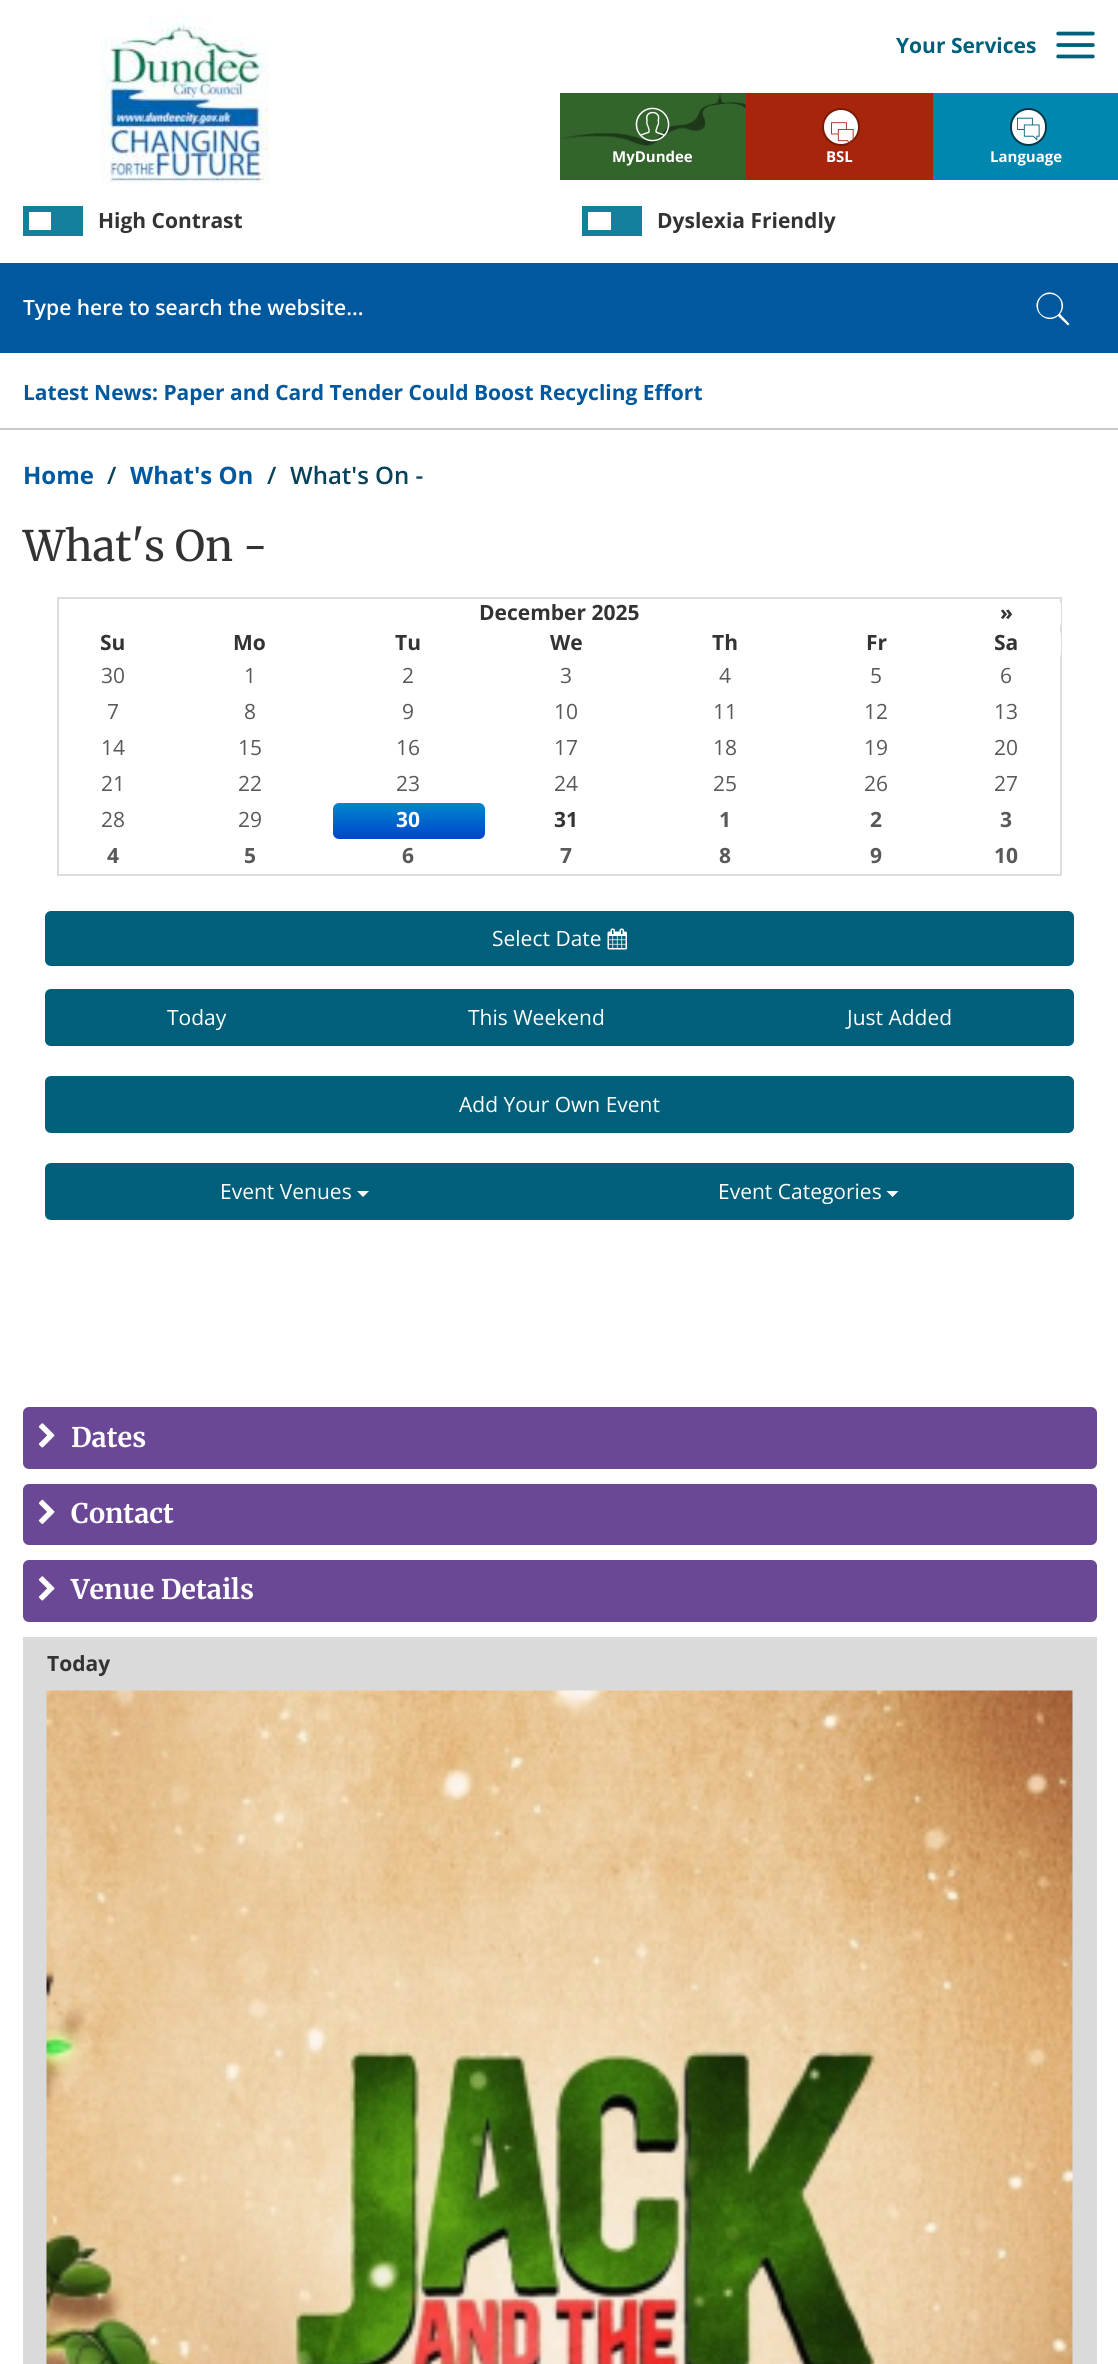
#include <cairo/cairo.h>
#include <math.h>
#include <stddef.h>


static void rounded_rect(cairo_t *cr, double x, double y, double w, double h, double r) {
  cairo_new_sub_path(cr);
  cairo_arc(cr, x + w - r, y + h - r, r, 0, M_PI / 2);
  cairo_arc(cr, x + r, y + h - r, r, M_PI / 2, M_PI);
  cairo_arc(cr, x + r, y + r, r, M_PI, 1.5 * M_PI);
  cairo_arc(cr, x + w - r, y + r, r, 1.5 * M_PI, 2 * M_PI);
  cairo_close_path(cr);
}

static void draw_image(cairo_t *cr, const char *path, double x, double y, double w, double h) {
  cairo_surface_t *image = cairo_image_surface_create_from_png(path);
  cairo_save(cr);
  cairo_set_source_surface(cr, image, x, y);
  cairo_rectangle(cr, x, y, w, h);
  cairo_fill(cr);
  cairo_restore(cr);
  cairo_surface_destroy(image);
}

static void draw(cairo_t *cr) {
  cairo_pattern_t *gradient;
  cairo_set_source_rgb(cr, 1, 1, 1);
  cairo_paint(cr);
  cairo_set_source_rgb(cr, 200 / 255.0, 200 / 255.0, 200 / 255.0);
  cairo_rectangle(cr, 0, 428, 1118, 2);
  cairo_fill(cr);
  draw_image(cr, "images/1.png", 100, 15, 170, 169);
  draw_image(cr, "images/2.png", 1056, 31, 39, 28);
  cairo_set_source_rgb(cr, 50 / 255.0, 100 / 255.0, 44 / 255.0);
  cairo_rectangle(cr, 560, 93, 186, 87);
  cairo_fill(cr);
  draw_image(cr, "images/3.png", 562, 93, 184, 53);
  draw_image(cr, "images/4.png", 635, 107, 35, 35);
  cairo_set_source_rgb(cr, 167 / 255.0, 37 / 255.0, 10 / 255.0);
  cairo_rectangle(cr, 746, 93, 187, 87);
  cairo_fill(cr);
  cairo_set_source_rgb(cr, 1, 1, 1);
  cairo_arc(cr, 841, 127, 18, 0, 2 * M_PI);
  cairo_fill_preserve(cr);
  cairo_set_source_rgb(cr, 119 / 255.0, 26 / 255.0, 7 / 255.0);
  cairo_stroke(cr);
  draw_image(cr, "images/5.png", 831, 122, 23, 22);
  cairo_set_source_rgb(cr, 0, 135 / 255.0, 175 / 255.0);
  cairo_rectangle(cr, 933, 93, 185, 87);
  cairo_fill(cr);
  cairo_set_source_rgb(cr, 1, 1, 1);
  rounded_rect(cr, 1011, 109, 35, 36, 17.5);
  cairo_fill_preserve(cr);
  cairo_set_source_rgb(cr, 0, 57 / 255.0, 73 / 255.0);
  cairo_stroke(cr);
  draw_image(cr, "images/6.png", 1017, 117, 23, 24);
  cairo_set_source_rgb(cr, 19 / 255.0, 128 / 255.0, 157 / 255.0);
  cairo_rectangle(cr, 23, 206, 60, 30);
  cairo_fill(cr);
  cairo_set_source_rgb(cr, 1, 1, 1);
  cairo_rectangle(cr, 29, 212, 22, 18);
  cairo_fill(cr);
  cairo_set_source_rgb(cr, 19 / 255.0, 128 / 255.0, 157 / 255.0);
  cairo_rectangle(cr, 582, 206, 60, 30);
  cairo_fill(cr);
  cairo_set_source_rgb(cr, 1, 1, 1);
  cairo_rectangle(cr, 588, 212, 23, 18);
  cairo_fill(cr);
  cairo_set_source_rgb(cr, 0, 89 / 255.0, 159 / 255.0);
  cairo_rectangle(cr, 0, 263, 1118, 90);
  cairo_fill(cr);
  cairo_set_source_rgb(cr, 1, 1, 1);
  cairo_new_path(cr);
  cairo_move_to(cr, 1069.5, 324);
  cairo_line_to(cr, 1060, 314);
  cairo_curve_to(cr, 1070.5, 301.5, 1052, 284.5, 1040.5, 296.5);
  cairo_curve_to(cr, 1028.5, 308, 1045.5, 326.5, 1058, 316);
  cairo_line_to(cr, 1068, 325.5);
  cairo_close_path(cr);
  cairo_move_to(cr, 1038, 306);
  cairo_curve_to(cr, 1038, 290, 1061.5, 290, 1061.5, 306);
  cairo_curve_to(cr, 1061.5, 321.5, 1038, 321.5, 1038, 306);
  cairo_close_path(cr);
  cairo_fill(cr);
  cairo_rectangle(cr, 58, 598, 1003, 277);
  cairo_set_source_rgb(cr, 221 / 255.0, 221 / 255.0, 221 / 255.0);
  cairo_stroke(cr);
  cairo_set_source_rgb(cr, 1, 1, 1);
  rounded_rect(cr, 953, 599, 108, 30, 6);
  cairo_fill(cr);
  rounded_rect(cr, 953, 629, 108, 30, 6);
  cairo_fill(cr);
  gradient = cairo_pattern_create_linear(409, 803, 409, 839);
  cairo_pattern_add_color_stop_rgba(gradient, 0, 0, 136 / 255.0, 204 / 255.0, 1);
  cairo_pattern_add_color_stop_rgba(gradient, 1, 0, 68 / 255.0, 204 / 255.0, 1);
  cairo_set_source(cr, gradient);
  cairo_pattern_destroy(gradient);
  rounded_rect(cr, 333, 803, 152, 36, 6);
  cairo_fill(cr);
  cairo_set_source_rgb(cr, 0, 96 / 255.0, 124 / 255.0);
  rounded_rect(cr, 45, 911, 1029, 55, 6);
  cairo_fill(cr);
  draw_image(cr, "images/7.png", 607, 928, 20, 22);
  cairo_new_path(cr);
  cairo_move_to(cr, 51, 989);
  cairo_line_to(cr, 348, 989);
  cairo_line_to(cr, 348, 1046);
  cairo_line_to(cr, 51, 1046);
  cairo_curve_to(cr, 47.5, 1046, 45, 1043.5, 45, 1040);
  cairo_line_to(cr, 45, 995);
  cairo_curve_to(cr, 45, 991.5, 47.5, 989, 51, 989);
  cairo_close_path(cr);
  cairo_fill(cr);
  cairo_rectangle(cr, 348, 989, 378, 57);
  cairo_fill(cr);
  cairo_new_path(cr);
  cairo_move_to(cr, 726, 989);
  cairo_line_to(cr, 1068, 989);
  cairo_curve_to(cr, 1071.5, 989, 1074, 991.5, 1074, 995);
  cairo_line_to(cr, 1074, 1040);
  cairo_curve_to(cr, 1074, 1043.5, 1071.5, 1046, 1068, 1046);
  cairo_line_to(cr, 726, 1046);
  cairo_close_path(cr);
  cairo_fill(cr);
  rounded_rect(cr, 45, 1076, 1029, 57, 6);
  cairo_fill(cr);
  cairo_new_path(cr);
  cairo_move_to(cr, 51, 1163);
  cairo_line_to(cr, 545, 1163);
  cairo_line_to(cr, 545, 1220);
  cairo_line_to(cr, 51, 1220);
  cairo_curve_to(cr, 47.5, 1220, 45, 1217.5, 45, 1214);
  cairo_line_to(cr, 45, 1169);
  cairo_curve_to(cr, 45, 1165.5, 47.5, 1163, 51, 1163);
  cairo_close_path(cr);
  cairo_fill(cr);
  cairo_set_source_rgb(cr, 1, 1, 1);
  cairo_new_path(cr);
  cairo_move_to(cr, 357, 1191);
  cairo_line_to(cr, 369, 1191);
  cairo_line_to(cr, 363, 1197);
  cairo_close_path(cr);
  cairo_fill(cr);
  cairo_set_source_rgb(cr, 0, 96 / 255.0, 124 / 255.0);
  cairo_new_path(cr);
  cairo_move_to(cr, 543, 1163);
  cairo_line_to(cr, 1068, 1163);
  cairo_curve_to(cr, 1071.5, 1163, 1074, 1165.5, 1074, 1169);
  cairo_line_to(cr, 1074, 1214);
  cairo_curve_to(cr, 1074, 1217.5, 1071.5, 1220, 1068, 1220);
  cairo_line_to(cr, 543, 1220);
  cairo_close_path(cr);
  cairo_fill(cr);
  cairo_set_source_rgb(cr, 1, 1, 1);
  cairo_new_path(cr);
  cairo_move_to(cr, 886.5, 1191);
  cairo_line_to(cr, 898.5, 1191);
  cairo_line_to(cr, 892.5, 1197);
  cairo_close_path(cr);
  cairo_fill(cr);
  cairo_set_source_rgb(cr, 106 / 255.0, 72 / 255.0, 150 / 255.0);
  rounded_rect(cr, 23, 1407, 1074, 62, 6);
  cairo_fill(cr);
  draw_image(cr, "images/8.png", 38, 1423, 17, 25);
  rounded_rect(cr, 23, 1484, 1074, 61, 6);
  cairo_fill(cr);
  draw_image(cr, "images/9.png", 38, 1499, 17, 25);
  rounded_rect(cr, 23, 1560, 1074, 62, 6);
  cairo_fill(cr);
  draw_image(cr, "images/8.png", 38, 1576, 17, 25);
  cairo_set_source_rgb(cr, 218 / 255.0, 218 / 255.0, 218 / 255.0);
  cairo_rectangle(cr, 23, 1637, 1074, 727);
  cairo_fill(cr);
  draw_image(cr, "images/10.png", 46, 1690, 1027, 674);
  cairo_select_font_face(cr, "Open Sans", CAIRO_FONT_SLANT_NORMAL, CAIRO_FONT_WEIGHT_BOLD);
  cairo_set_font_size(cr, 21);
  cairo_set_source_rgb(cr, 0, 96 / 255.0, 124 / 255.0);
  cairo_move_to(cr, 896, 53);
  cairo_show_text(cr, "Your Services");
  cairo_set_font_size(cr, 15);
  cairo_set_source_rgb(cr, 1, 1, 1);
  cairo_move_to(cr, 612, 162);
  cairo_show_text(cr, "MyDundee");
  cairo_move_to(cr, 826, 162);
  cairo_show_text(cr, "BSL");
  cairo_move_to(cr, 990, 162);
  cairo_show_text(cr, "Language");
  cairo_set_font_size(cr, 21);
  cairo_set_source_rgb(cr, 51 / 255.0, 51 / 255.0, 51 / 255.0);
  cairo_move_to(cr, 98, 228);
  cairo_show_text(cr, "High Contrast");
  cairo_move_to(cr, 657, 228);
  cairo_show_text(cr, "Dyslexia Friendly");
  cairo_select_font_face(cr, "Open Sans SemiBold", CAIRO_FONT_SLANT_NORMAL, CAIRO_FONT_WEIGHT_NORMAL);
  cairo_set_source_rgb(cr, 1, 1, 1);
  cairo_move_to(cr, 23, 315);
  cairo_show_text(cr, "Type here to search the website...");
  cairo_select_font_face(cr, "Open Sans", CAIRO_FONT_SLANT_NORMAL, CAIRO_FONT_WEIGHT_BOLD);
  cairo_set_source_rgb(cr, 0, 89 / 255.0, 159 / 255.0);
  cairo_move_to(cr, 23, 400);
  cairo_show_text(cr, "Latest News: Paper and Card Tender Could Boost Recycling Effort");
  cairo_set_font_size(cr, 24);
  cairo_move_to(cr, 23, 484);
  cairo_show_text(cr, "Home");
  cairo_select_font_face(cr, "Open Sans SemiBold", CAIRO_FONT_SLANT_NORMAL, CAIRO_FONT_WEIGHT_NORMAL);
  cairo_set_source_rgb(cr, 8 / 255.0, 65 / 255.0, 90 / 255.0);
  cairo_move_to(cr, 107, 484);
  cairo_show_text(cr, "/");
  cairo_select_font_face(cr, "Open Sans", CAIRO_FONT_SLANT_NORMAL, CAIRO_FONT_WEIGHT_BOLD);
  cairo_set_source_rgb(cr, 0, 89 / 255.0, 159 / 255.0);
  cairo_move_to(cr, 130, 484);
  cairo_show_text(cr, "What's On");
  cairo_select_font_face(cr, "Open Sans SemiBold", CAIRO_FONT_SLANT_NORMAL, CAIRO_FONT_WEIGHT_NORMAL);
  cairo_set_source_rgb(cr, 8 / 255.0, 65 / 255.0, 90 / 255.0);
  cairo_move_to(cr, 267, 484);
  cairo_show_text(cr, "/");
  cairo_move_to(cr, 290, 484);
  cairo_show_text(cr, "What's On -");
  cairo_select_font_face(cr, "Merriweather", CAIRO_FONT_SLANT_NORMAL, CAIRO_FONT_WEIGHT_NORMAL);
  cairo_set_font_size(cr, 42);
  cairo_set_source_rgb(cr, 51 / 255.0, 51 / 255.0, 51 / 255.0);
  cairo_move_to(cr, 23, 561);
  cairo_show_text(cr, "What's On -");
  cairo_select_font_face(cr, "Open Sans", CAIRO_FONT_SLANT_NORMAL, CAIRO_FONT_WEIGHT_BOLD);
  cairo_set_font_size(cr, 21);
  cairo_move_to(cr, 479, 620);
  cairo_show_text(cr, "December 2025");
  cairo_move_to(cr, 1000, 620);
  cairo_show_text(cr, "»");
  cairo_move_to(cr, 100, 650);
  cairo_show_text(cr, "Su");
  cairo_move_to(cr, 233, 650);
  cairo_show_text(cr, "Mo");
  cairo_move_to(cr, 395, 650);
  cairo_show_text(cr, "Tu");
  cairo_move_to(cr, 550, 650);
  cairo_show_text(cr, "We");
  cairo_move_to(cr, 712, 650);
  cairo_show_text(cr, "Th");
  cairo_move_to(cr, 866, 650);
  cairo_show_text(cr, "Fr");
  cairo_move_to(cr, 994, 650);
  cairo_show_text(cr, "Sa");
  cairo_select_font_face(cr, "Open Sans", CAIRO_FONT_SLANT_NORMAL, CAIRO_FONT_WEIGHT_NORMAL);
  cairo_set_source_rgb(cr, 89 / 255.0, 89 / 255.0, 89 / 255.0);
  cairo_move_to(cr, 101, 683);
  cairo_show_text(cr, "30");
  cairo_move_to(cr, 244, 683);
  cairo_show_text(cr, "1");
  cairo_move_to(cr, 402, 683);
  cairo_show_text(cr, "2");
  cairo_move_to(cr, 560, 683);
  cairo_show_text(cr, "3");
  cairo_move_to(cr, 719, 683);
  cairo_show_text(cr, "4");
  cairo_move_to(cr, 870, 683);
  cairo_show_text(cr, "5");
  cairo_move_to(cr, 1000, 683);
  cairo_show_text(cr, "6");
  cairo_move_to(cr, 107, 719);
  cairo_show_text(cr, "7");
  cairo_move_to(cr, 244, 719);
  cairo_show_text(cr, "8");
  cairo_move_to(cr, 402, 719);
  cairo_show_text(cr, "9");
  cairo_move_to(cr, 554, 719);
  cairo_show_text(cr, "10");
  cairo_move_to(cr, 713, 719);
  cairo_show_text(cr, "11");
  cairo_move_to(cr, 864, 719);
  cairo_show_text(cr, "12");
  cairo_move_to(cr, 994, 719);
  cairo_show_text(cr, "13");
  cairo_move_to(cr, 101, 755);
  cairo_show_text(cr, "14");
  cairo_move_to(cr, 238, 755);
  cairo_show_text(cr, "15");
  cairo_move_to(cr, 396, 755);
  cairo_show_text(cr, "16");
  cairo_move_to(cr, 554, 755);
  cairo_show_text(cr, "17");
  cairo_move_to(cr, 713, 755);
  cairo_show_text(cr, "18");
  cairo_move_to(cr, 864, 755);
  cairo_show_text(cr, "19");
  cairo_move_to(cr, 994, 755);
  cairo_show_text(cr, "20");
  cairo_move_to(cr, 101, 791);
  cairo_show_text(cr, "21");
  cairo_move_to(cr, 238, 791);
  cairo_show_text(cr, "22");
  cairo_move_to(cr, 396, 791);
  cairo_show_text(cr, "23");
  cairo_move_to(cr, 554, 791);
  cairo_show_text(cr, "24");
  cairo_move_to(cr, 713, 791);
  cairo_show_text(cr, "25");
  cairo_move_to(cr, 864, 791);
  cairo_show_text(cr, "26");
  cairo_move_to(cr, 994, 791);
  cairo_show_text(cr, "27");
  cairo_move_to(cr, 101, 827);
  cairo_show_text(cr, "28");
  cairo_move_to(cr, 238, 827);
  cairo_show_text(cr, "29");
  cairo_select_font_face(cr, "Open Sans", CAIRO_FONT_SLANT_NORMAL, CAIRO_FONT_WEIGHT_BOLD);
  cairo_set_source_rgb(cr, 1, 1, 1);
  cairo_move_to(cr, 396, 827);
  cairo_show_text(cr, "30");
  cairo_set_source_rgb(cr, 51 / 255.0, 51 / 255.0, 51 / 255.0);
  cairo_move_to(cr, 554, 827);
  cairo_show_text(cr, "31");
  cairo_set_source_rgb(cr, 89 / 255.0, 89 / 255.0, 89 / 255.0);
  cairo_move_to(cr, 719, 827);
  cairo_show_text(cr, "1");
  cairo_move_to(cr, 870, 827);
  cairo_show_text(cr, "2");
  cairo_move_to(cr, 1000, 827);
  cairo_show_text(cr, "3");
  cairo_move_to(cr, 107, 863);
  cairo_show_text(cr, "4");
  cairo_move_to(cr, 244, 863);
  cairo_show_text(cr, "5");
  cairo_move_to(cr, 402, 863);
  cairo_show_text(cr, "6");
  cairo_move_to(cr, 560, 863);
  cairo_show_text(cr, "7");
  cairo_move_to(cr, 719, 863);
  cairo_show_text(cr, "8");
  cairo_move_to(cr, 870, 863);
  cairo_show_text(cr, "9");
  cairo_move_to(cr, 994, 863);
  cairo_show_text(cr, "10");
  cairo_select_font_face(cr, "Open Sans", CAIRO_FONT_SLANT_NORMAL, CAIRO_FONT_WEIGHT_NORMAL);
  cairo_set_source_rgb(cr, 1, 1, 1);
  cairo_move_to(cr, 492, 946);
  cairo_show_text(cr, "Select Date");
  cairo_move_to(cr, 167, 1025);
  cairo_show_text(cr, "Today");
  cairo_move_to(cr, 468, 1025);
  cairo_show_text(cr, "This Weekend");
  cairo_move_to(cr, 847, 1025);
  cairo_show_text(cr, "Just Added");
  cairo_move_to(cr, 459, 1112);
  cairo_show_text(cr, "Add Your Own Event");
  cairo_move_to(cr, 220, 1199);
  cairo_show_text(cr, "Event Venues");
  cairo_move_to(cr, 718, 1199);
  cairo_show_text(cr, "Event Categories");
  cairo_select_font_face(cr, "Merriweather", CAIRO_FONT_SLANT_NORMAL, CAIRO_FONT_WEIGHT_BOLD);
  cairo_set_font_size(cr, 27);
  cairo_move_to(cr, 71, 1447);
  cairo_show_text(cr, "Dates");
  cairo_move_to(cr, 71, 1523);
  cairo_show_text(cr, "Contact");
  cairo_move_to(cr, 71, 1599);
  cairo_show_text(cr, "Venue Details");
  cairo_select_font_face(cr, "Open Sans", CAIRO_FONT_SLANT_NORMAL, CAIRO_FONT_WEIGHT_BOLD);
  cairo_set_font_size(cr, 21);
  cairo_set_source_rgb(cr, 51 / 255.0, 51 / 255.0, 51 / 255.0);
  cairo_move_to(cr, 47, 1671);
  cairo_show_text(cr, "Today");
}

int main(void) {
  cairo_surface_t *surface = cairo_image_surface_create(CAIRO_FORMAT_RGB24, 1118, 2364);
  cairo_t *cr = cairo_create(surface);
  cairo_font_options_t *options = cairo_font_options_create();
  cairo_font_options_set_hint_metrics(options, CAIRO_HINT_METRICS_OFF);
  cairo_font_options_set_hint_style(options, CAIRO_HINT_STYLE_NONE);
  cairo_set_font_options(cr, options);
  cairo_set_miter_limit(cr, 4);
  draw(cr);
  cairo_surface_write_to_png(surface, "out.png");
  cairo_font_options_destroy(options);
  cairo_destroy(cr);
  cairo_surface_destroy(surface);
  return 0;
}
